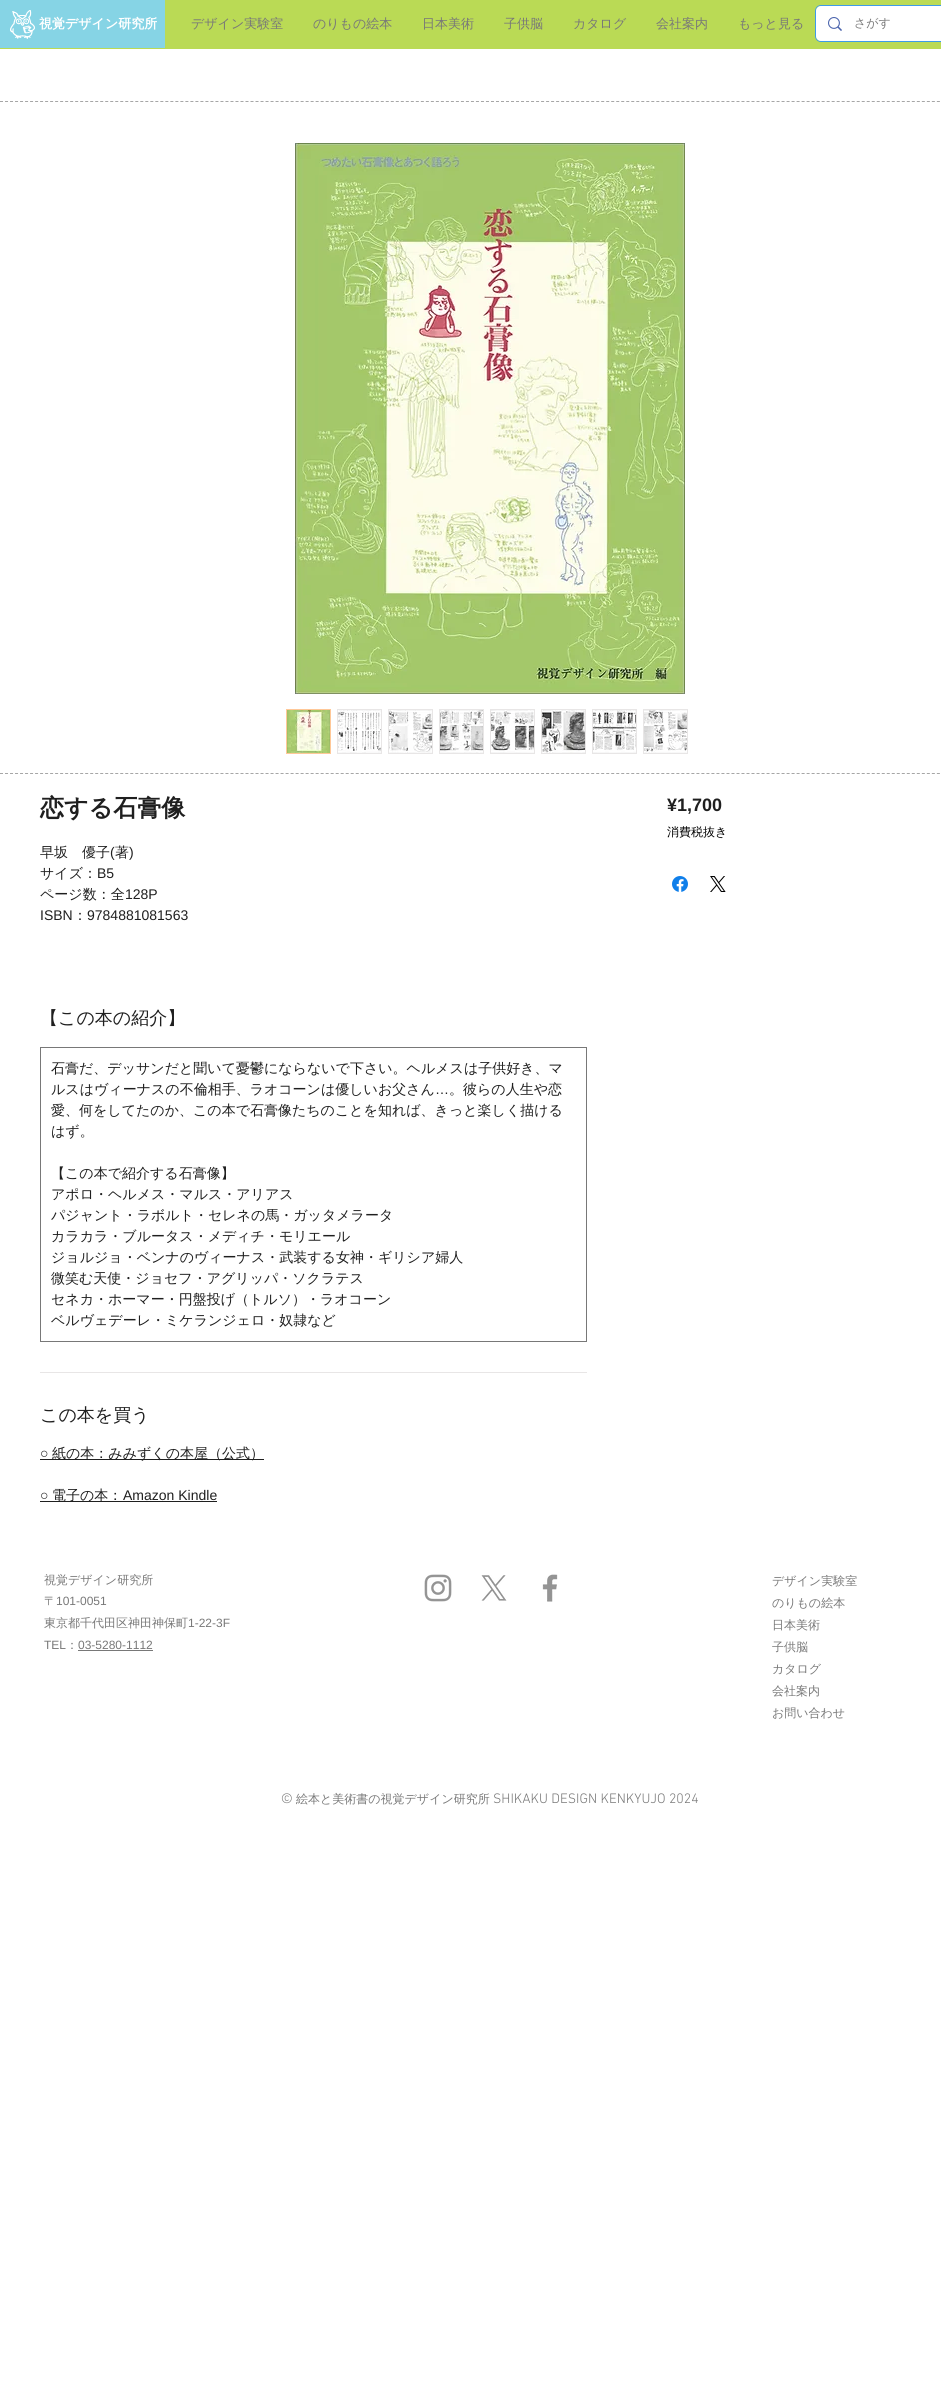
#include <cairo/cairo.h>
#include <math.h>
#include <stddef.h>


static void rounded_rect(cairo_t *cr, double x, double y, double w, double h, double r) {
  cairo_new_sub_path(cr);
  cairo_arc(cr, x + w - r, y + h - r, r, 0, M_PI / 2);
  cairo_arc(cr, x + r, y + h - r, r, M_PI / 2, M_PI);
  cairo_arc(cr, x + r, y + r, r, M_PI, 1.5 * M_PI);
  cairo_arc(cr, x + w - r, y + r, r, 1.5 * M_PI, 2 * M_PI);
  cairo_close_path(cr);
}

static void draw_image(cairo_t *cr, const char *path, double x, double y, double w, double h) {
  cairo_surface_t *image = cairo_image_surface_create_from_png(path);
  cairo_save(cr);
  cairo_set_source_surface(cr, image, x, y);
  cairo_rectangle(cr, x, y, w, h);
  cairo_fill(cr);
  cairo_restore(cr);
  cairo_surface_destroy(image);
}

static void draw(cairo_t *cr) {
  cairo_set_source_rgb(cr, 1, 1, 1);
  cairo_paint(cr);
  cairo_set_source_rgb(cr, 186 / 255.0, 218 / 255.0, 85 / 255.0);
  cairo_rectangle(cr, 0, 0, 941, 49);
  cairo_fill(cr);
  cairo_set_source_rgb(cr, 134 / 255.0, 212 / 255.0, 229 / 255.0);
  cairo_rectangle(cr, 0, 0, 165, 48);
  cairo_fill(cr);
  draw_image(cr, "images/1.png", 10, 10, 25, 29);
  rounded_rect(cr, 815.5, 5.5, 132, 36, 5.5);
  cairo_set_source_rgb(cr, 61 / 255.0, 155 / 255.0, 233 / 255.0);
  cairo_set_line_width(cr, 1);
  cairo_stroke(cr);
  cairo_set_source_rgb(cr, 1, 1, 1);
  rounded_rect(cr, 816, 6, 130, 35, 5);
  cairo_fill(cr);
  draw_image(cr, "images/2.png", 828, 17, 14, 14);
  cairo_new_path(cr);
  cairo_move_to(cr, 0, 101.5);
  cairo_line_to(cr, 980, 101.5);
  cairo_set_source_rgb(cr, 166 / 255.0, 166 / 255.0, 166 / 255.0);
  cairo_set_dash(cr, (double[]){3, 2.01}, 2, 0);
  cairo_stroke(cr);
  cairo_new_path(cr);
  cairo_move_to(cr, 0, 773.5);
  cairo_line_to(cr, 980, 773.5);
  cairo_stroke(cr);
  draw_image(cr, "images/3.png", 295, 143, 390, 551);
  cairo_rectangle(cr, 286.5, 709.5, 44, 44);
  cairo_set_source_rgb(cr, 1, 200 / 255.0, 152 / 255.0);
  cairo_set_dash(cr, NULL, 0, 0);
  cairo_stroke(cr);
  draw_image(cr, "images/4.png", 287, 710, 43, 43);
  cairo_set_source_rgb(cr, 232 / 255.0, 230 / 255.0, 230 / 255.0);
  cairo_rectangle(cr, 337, 709, 45, 45);
  cairo_fill(cr);
  draw_image(cr, "images/5.png", 338, 710, 43, 43);
  cairo_rectangle(cr, 388, 709, 45, 45);
  cairo_fill(cr);
  draw_image(cr, "images/6.png", 389, 710, 43, 43);
  cairo_rectangle(cr, 439, 709, 45, 45);
  cairo_fill(cr);
  draw_image(cr, "images/7.png", 440, 710, 43, 43);
  cairo_rectangle(cr, 490, 709, 45, 45);
  cairo_fill(cr);
  draw_image(cr, "images/8.png", 491, 710, 43, 43);
  cairo_rectangle(cr, 541, 709, 45, 45);
  cairo_fill(cr);
  draw_image(cr, "images/9.png", 542, 710, 43, 43);
  cairo_rectangle(cr, 592, 709, 45, 45);
  cairo_fill(cr);
  draw_image(cr, "images/10.png", 593, 710, 43, 43);
  cairo_rectangle(cr, 643, 709, 45, 45);
  cairo_fill(cr);
  draw_image(cr, "images/11.png", 644, 710, 43, 43);
  cairo_rectangle(cr, 40, 1372, 547, 1);
  cairo_fill(cr);
  cairo_set_source_rgb(cr, 120 / 255.0, 120 / 255.0, 120 / 255.0);
  cairo_rectangle(cr, 40, 1047, 547, 1);
  cairo_fill(cr);
  cairo_rectangle(cr, 586, 1047, 1, 295);
  cairo_fill(cr);
  cairo_rectangle(cr, 40, 1341, 547, 1);
  cairo_fill(cr);
  cairo_rectangle(cr, 40, 1047, 1, 295);
  cairo_fill(cr);
  cairo_set_source_rgb(cr, 31 / 255.0, 31 / 255.0, 31 / 255.0);
  cairo_rectangle(cr, 40, 1459, 224, 1);
  cairo_fill(cr);
  cairo_rectangle(cr, 40, 1501, 177, 1);
  cairo_fill(cr);
  draw_image(cr, "images/12.png", 672, 876, 16, 16);
  draw_image(cr, "images/13.png", 710, 876, 16, 16);
  cairo_set_source_rgb(cr, 120 / 255.0, 120 / 255.0, 120 / 255.0);
  cairo_rectangle(cr, 78, 1650, 75, 1);
  cairo_fill(cr);
  draw_image(cr, "images/14.png", 424, 1574, 28, 28);
  draw_image(cr, "images/15.png", 481, 1575, 26, 26);
  draw_image(cr, "images/16.png", 542, 1574, 16, 28);
  cairo_select_font_face(cr, "WenQuanYi Zen Hei", CAIRO_FONT_SLANT_NORMAL, CAIRO_FONT_WEIGHT_BOLD);
  cairo_set_font_size(cr, 13);
  cairo_set_source_rgb(cr, 1, 1, 1);
  cairo_move_to(cr, 39, 28);
  cairo_show_text(cr, "視覚デザイン研究所");
  cairo_select_font_face(cr, "WenQuanYi Zen Hei Medium", CAIRO_FONT_SLANT_NORMAL, CAIRO_FONT_WEIGHT_NORMAL);
  cairo_set_source_rgb(cr, 120 / 255.0, 120 / 255.0, 120 / 255.0);
  cairo_move_to(cr, 191, 28);
  cairo_show_text(cr, "デザイン実験室");
  cairo_move_to(cr, 313, 28);
  cairo_show_text(cr, "のりもの絵本");
  cairo_move_to(cr, 422, 28);
  cairo_show_text(cr, "日本美術");
  cairo_move_to(cr, 504, 28);
  cairo_show_text(cr, "子供脳");
  cairo_move_to(cr, 573, 28);
  cairo_show_text(cr, "カタログ");
  cairo_move_to(cr, 656, 28);
  cairo_show_text(cr, "会社案内");
  cairo_move_to(cr, 738, 28);
  cairo_show_text(cr, "もっと見る");
  cairo_set_font_size(cr, 12);
  cairo_move_to(cr, 854, 27);
  cairo_show_text(cr, "さがす");
  cairo_select_font_face(cr, "WenQuanYi Zen Hei", CAIRO_FONT_SLANT_NORMAL, CAIRO_FONT_WEIGHT_BOLD);
  cairo_set_font_size(cr, 24);
  cairo_set_source_rgb(cr, 31 / 255.0, 31 / 255.0, 31 / 255.0);
  cairo_move_to(cr, 40, 816);
  cairo_show_text(cr, "恋する石膏像");
  cairo_select_font_face(cr, "WenQuanYi Zen Hei Medium", CAIRO_FONT_SLANT_NORMAL, CAIRO_FONT_WEIGHT_NORMAL);
  cairo_set_font_size(cr, 14);
  cairo_move_to(cr, 40, 857);
  cairo_show_text(cr, "早坂　優子");
  cairo_select_font_face(cr, "Liberation Sans", CAIRO_FONT_SLANT_NORMAL, CAIRO_FONT_WEIGHT_NORMAL);
  cairo_move_to(cr, 110, 857);
  cairo_show_text(cr, "(");
  cairo_select_font_face(cr, "WenQuanYi Zen Hei Medium", CAIRO_FONT_SLANT_NORMAL, CAIRO_FONT_WEIGHT_NORMAL);
  cairo_move_to(cr, 115, 857);
  cairo_show_text(cr, "著");
  cairo_select_font_face(cr, "Liberation Sans", CAIRO_FONT_SLANT_NORMAL, CAIRO_FONT_WEIGHT_NORMAL);
  cairo_move_to(cr, 129, 857);
  cairo_show_text(cr, ")");
  cairo_select_font_face(cr, "WenQuanYi Zen Hei Medium", CAIRO_FONT_SLANT_NORMAL, CAIRO_FONT_WEIGHT_NORMAL);
  cairo_move_to(cr, 40, 878);
  cairo_show_text(cr, "サイズ：");
  cairo_select_font_face(cr, "Liberation Sans", CAIRO_FONT_SLANT_NORMAL, CAIRO_FONT_WEIGHT_NORMAL);
  cairo_move_to(cr, 97, 878);
  cairo_show_text(cr, "B5");
  cairo_select_font_face(cr, "WenQuanYi Zen Hei Medium", CAIRO_FONT_SLANT_NORMAL, CAIRO_FONT_WEIGHT_NORMAL);
  cairo_move_to(cr, 40, 899);
  cairo_show_text(cr, "ページ数：全");
  cairo_select_font_face(cr, "Liberation Sans", CAIRO_FONT_SLANT_NORMAL, CAIRO_FONT_WEIGHT_NORMAL);
  cairo_move_to(cr, 125, 899);
  cairo_show_text(cr, "128P");
  cairo_move_to(cr, 40, 920);
  cairo_show_text(cr, "ISBN");
  cairo_select_font_face(cr, "WenQuanYi Zen Hei Medium", CAIRO_FONT_SLANT_NORMAL, CAIRO_FONT_WEIGHT_NORMAL);
  cairo_move_to(cr, 73, 920);
  cairo_show_text(cr, "：");
  cairo_select_font_face(cr, "Liberation Sans", CAIRO_FONT_SLANT_NORMAL, CAIRO_FONT_WEIGHT_NORMAL);
  cairo_move_to(cr, 87, 920);
  cairo_show_text(cr, "9784881081563");
  cairo_select_font_face(cr, "WenQuanYi Zen Hei Medium", CAIRO_FONT_SLANT_NORMAL, CAIRO_FONT_WEIGHT_NORMAL);
  cairo_set_font_size(cr, 18);
  cairo_move_to(cr, 40, 1024);
  cairo_show_text(cr, "【この本の紹介】");
  cairo_set_font_size(cr, 14);
  cairo_move_to(cr, 51, 1073);
  cairo_show_text(cr, "石膏だ、デッサンだと聞いて憂鬱にならないで下さい。ヘルメスは子供好き、マ");
  cairo_move_to(cr, 51, 1094);
  cairo_show_text(cr, "ルスはヴィーナスの不倫相手、ラオコーンは優しいお父さん");
  cairo_select_font_face(cr, "Liberation Sans", CAIRO_FONT_SLANT_NORMAL, CAIRO_FONT_WEIGHT_NORMAL);
  cairo_move_to(cr, 435, 1094);
  cairo_show_text(cr, "…");
  cairo_select_font_face(cr, "WenQuanYi Zen Hei Medium", CAIRO_FONT_SLANT_NORMAL, CAIRO_FONT_WEIGHT_NORMAL);
  cairo_move_to(cr, 449, 1094);
  cairo_show_text(cr, "。彼らの人生や恋");
  cairo_move_to(cr, 51, 1115);
  cairo_show_text(cr, "愛、何をしてたのか、この本で石膏像たちのことを知れば、きっと楽しく描ける");
  cairo_move_to(cr, 51, 1136);
  cairo_show_text(cr, "はず。");
  cairo_move_to(cr, 51, 1178);
  cairo_show_text(cr, "【この本で紹介する石膏像】");
  cairo_move_to(cr, 51, 1199);
  cairo_show_text(cr, "アポロ・ヘルメス・マルス・アリアス");
  cairo_move_to(cr, 51, 1220);
  cairo_show_text(cr, "パジャント・ラボルト・セレネの馬・ガッタメラータ");
  cairo_move_to(cr, 51, 1241);
  cairo_show_text(cr, "カラカラ・ブルータス・メディチ・モリエール");
  cairo_move_to(cr, 51, 1262);
  cairo_show_text(cr, "ジョルジョ・ベンナのヴィーナス・武装する女神・ギリシア婦人");
  cairo_move_to(cr, 51, 1283);
  cairo_show_text(cr, "微笑む天使・ジョセフ・アグリッパ・ソクラテス");
  cairo_move_to(cr, 51, 1304);
  cairo_show_text(cr, "セネカ・ホーマー・円盤投げ（トルソ）・ラオコーン");
  cairo_move_to(cr, 51, 1325);
  cairo_show_text(cr, "ベルヴェデーレ・ミケランジェロ・奴隷など");
  cairo_set_font_size(cr, 18);
  cairo_move_to(cr, 40, 1421);
  cairo_show_text(cr, "この本を買う");
  cairo_select_font_face(cr, "Liberation Sans", CAIRO_FONT_SLANT_NORMAL, CAIRO_FONT_WEIGHT_NORMAL);
  cairo_set_font_size(cr, 14);
  cairo_move_to(cr, 40, 1458);
  cairo_show_text(cr, "○");
  cairo_select_font_face(cr, "WenQuanYi Zen Hei Medium", CAIRO_FONT_SLANT_NORMAL, CAIRO_FONT_WEIGHT_NORMAL);
  cairo_move_to(cr, 52, 1458);
  cairo_show_text(cr, "紙の本：みみずくの本屋（公式）");
  cairo_select_font_face(cr, "Liberation Sans", CAIRO_FONT_SLANT_NORMAL, CAIRO_FONT_WEIGHT_NORMAL);
  cairo_move_to(cr, 40, 1500);
  cairo_show_text(cr, "○");
  cairo_select_font_face(cr, "WenQuanYi Zen Hei Medium", CAIRO_FONT_SLANT_NORMAL, CAIRO_FONT_WEIGHT_NORMAL);
  cairo_move_to(cr, 52, 1500);
  cairo_show_text(cr, "電子の本：");
  cairo_select_font_face(cr, "Liberation Sans", CAIRO_FONT_SLANT_NORMAL, CAIRO_FONT_WEIGHT_NORMAL);
  cairo_move_to(cr, 123, 1500);
  cairo_show_text(cr, "Amazon Kindle");
  cairo_select_font_face(cr, "Liberation Sans", CAIRO_FONT_SLANT_NORMAL, CAIRO_FONT_WEIGHT_BOLD);
  cairo_set_font_size(cr, 18);
  cairo_move_to(cr, 667, 811);
  cairo_show_text(cr, "¥1,700");
  cairo_select_font_face(cr, "WenQuanYi Zen Hei Medium", CAIRO_FONT_SLANT_NORMAL, CAIRO_FONT_WEIGHT_NORMAL);
  cairo_set_font_size(cr, 12);
  cairo_set_source_rgb(cr, 0, 0, 0);
  cairo_move_to(cr, 667, 836);
  cairo_show_text(cr, "消費税抜き");
  cairo_set_source_rgb(cr, 120 / 255.0, 120 / 255.0, 120 / 255.0);
  cairo_move_to(cr, 44, 1584);
  cairo_show_text(cr, "視覚デザイン研究所");
  cairo_move_to(cr, 44, 1605);
  cairo_show_text(cr, "〒");
  cairo_select_font_face(cr, "Liberation Sans", CAIRO_FONT_SLANT_NORMAL, CAIRO_FONT_WEIGHT_NORMAL);
  cairo_move_to(cr, 56, 1605);
  cairo_show_text(cr, "101-0051");
  cairo_select_font_face(cr, "WenQuanYi Zen Hei Medium", CAIRO_FONT_SLANT_NORMAL, CAIRO_FONT_WEIGHT_NORMAL);
  cairo_move_to(cr, 44, 1627);
  cairo_show_text(cr, "東京都千代田区神田神保町");
  cairo_select_font_face(cr, "Liberation Sans", CAIRO_FONT_SLANT_NORMAL, CAIRO_FONT_WEIGHT_NORMAL);
  cairo_move_to(cr, 188, 1627);
  cairo_show_text(cr, "1-22-3F");
  cairo_move_to(cr, 44, 1649);
  cairo_show_text(cr, "TEL");
  cairo_select_font_face(cr, "WenQuanYi Zen Hei Medium", CAIRO_FONT_SLANT_NORMAL, CAIRO_FONT_WEIGHT_NORMAL);
  cairo_move_to(cr, 66, 1649);
  cairo_show_text(cr, "：");
  cairo_select_font_face(cr, "Liberation Sans", CAIRO_FONT_SLANT_NORMAL, CAIRO_FONT_WEIGHT_NORMAL);
  cairo_move_to(cr, 78, 1649);
  cairo_show_text(cr, "03-5280-1112");
  cairo_select_font_face(cr, "WenQuanYi Zen Hei Medium", CAIRO_FONT_SLANT_NORMAL, CAIRO_FONT_WEIGHT_NORMAL);
  cairo_move_to(cr, 772, 1585);
  cairo_show_text(cr, "デザイン実験室");
  cairo_move_to(cr, 772, 1607);
  cairo_show_text(cr, "のりもの絵本");
  cairo_move_to(cr, 772, 1629);
  cairo_show_text(cr, "日本美術");
  cairo_move_to(cr, 772, 1651);
  cairo_show_text(cr, "子供脳");
  cairo_move_to(cr, 772, 1673);
  cairo_show_text(cr, "カタログ");
  cairo_move_to(cr, 772, 1695);
  cairo_show_text(cr, "会社案内");
  cairo_move_to(cr, 772, 1717);
  cairo_show_text(cr, "お問い合わせ");
  cairo_select_font_face(cr, "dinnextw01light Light", CAIRO_FONT_SLANT_NORMAL, CAIRO_FONT_WEIGHT_NORMAL);
  cairo_set_font_size(cr, 14);
  cairo_move_to(cr, 281, 1803);
  cairo_show_text(cr, "©");
  cairo_select_font_face(cr, "WenQuanYi Zen Hei Medium", CAIRO_FONT_SLANT_NORMAL, CAIRO_FONT_WEIGHT_NORMAL);
  cairo_set_font_size(cr, 12);
  cairo_move_to(cr, 296, 1803);
  cairo_show_text(cr, "絵本と美術書の視覚デザイン研究所");
  cairo_select_font_face(cr, "dinnextw01light Light", CAIRO_FONT_SLANT_NORMAL, CAIRO_FONT_WEIGHT_NORMAL);
  cairo_set_font_size(cr, 14);
  cairo_move_to(cr, 493, 1803);
  cairo_show_text(cr, "SHIKAKU DESIGN KENKYUJO 2024");
}

int main(void) {
  cairo_surface_t *surface = cairo_image_surface_create(CAIRO_FORMAT_RGB24, 941, 2384);
  cairo_t *cr = cairo_create(surface);
  cairo_font_options_t *options = cairo_font_options_create();
  cairo_font_options_set_hint_metrics(options, CAIRO_HINT_METRICS_OFF);
  cairo_font_options_set_hint_style(options, CAIRO_HINT_STYLE_NONE);
  cairo_set_font_options(cr, options);
  cairo_set_miter_limit(cr, 4);
  draw(cr);
  cairo_surface_write_to_png(surface, "out.png");
  cairo_font_options_destroy(options);
  cairo_destroy(cr);
  cairo_surface_destroy(surface);
  return 0;
}
